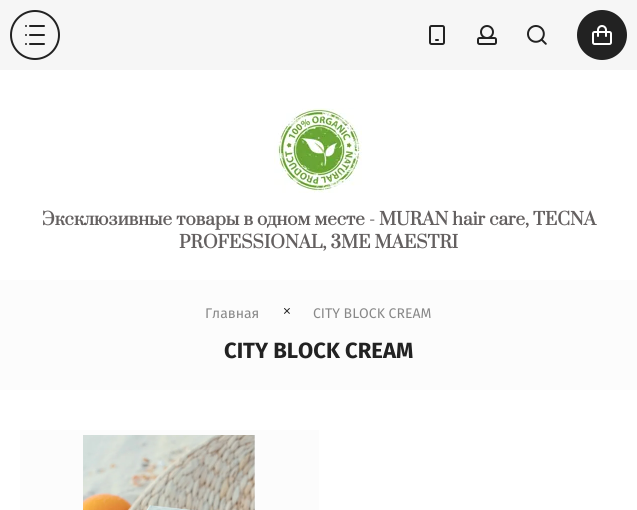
#include <cairo/cairo.h>
#include <math.h>
#include <stddef.h>


static void draw_image(cairo_t *cr, const char *path, double x, double y, double w, double h) {
  cairo_surface_t *image = cairo_image_surface_create_from_png(path);
  cairo_save(cr);
  cairo_set_source_surface(cr, image, x, y);
  cairo_rectangle(cr, x, y, w, h);
  cairo_fill(cr);
  cairo_restore(cr);
  cairo_surface_destroy(image);
}

static void draw(cairo_t *cr) {
  cairo_set_source_rgb(cr, 1, 1, 1);
  cairo_paint(cr);
  cairo_set_source_rgb(cr, 246 / 255.0, 246 / 255.0, 246 / 255.0);
  cairo_rectangle(cr, 0, 0, 637, 70);
  cairo_fill(cr);
  cairo_arc(cr, 35, 35, 24, 0, 2 * M_PI);
  cairo_set_source_rgb(cr, 34 / 255.0, 34 / 255.0, 34 / 255.0);
  cairo_stroke(cr);
  draw_image(cr, "images/1.png", 25, 25, 20, 20);
  draw_image(cr, "images/2.png", 429, 25, 16, 20);
  draw_image(cr, "images/3.png", 477, 25, 20, 20);
  draw_image(cr, "images/4.png", 527, 25, 20, 20);
  cairo_arc(cr, 602, 35, 25, 0, 2 * M_PI);
  cairo_fill(cr);
  draw_image(cr, "images/5.png", 592, 25, 20, 20);
  draw_image(cr, "images/6.png", 274, 108, 88, 85);
  cairo_set_source_rgb(cr, 252 / 255.0, 252 / 255.0, 252 / 255.0);
  cairo_rectangle(cr, 0, 280, 637, 110);
  cairo_fill(cr);
  draw_image(cr, "images/7.png", 284, 308, 6, 6);
  cairo_rectangle(cr, 20, 430, 299, 80);
  cairo_fill(cr);
  draw_image(cr, "images/8.png", 83, 435, 172, 75);
  cairo_select_font_face(cr, "Prata", CAIRO_FONT_SLANT_NORMAL, CAIRO_FONT_WEIGHT_BOLD);
  cairo_set_font_size(cr, 17);
  cairo_set_source_rgb(cr, 100 / 255.0, 96 / 255.0, 96 / 255.0);
  cairo_move_to(cr, 42, 225);
  cairo_show_text(cr, "Эксклюзивные товары в одном месте - MURAN hair care, TECNA");
  cairo_move_to(cr, 179, 248);
  cairo_show_text(cr, "PROFESSIONAL, 3ME MAESTRI");
  cairo_select_font_face(cr, "Fira Sans", CAIRO_FONT_SLANT_NORMAL, CAIRO_FONT_WEIGHT_NORMAL);
  cairo_set_font_size(cr, 14);
  cairo_set_source_rgb(cr, 136 / 255.0, 136 / 255.0, 136 / 255.0);
  cairo_move_to(cr, 205, 318);
  cairo_show_text(cr, "Главная");
  cairo_move_to(cr, 313, 318);
  cairo_show_text(cr, "CITY BLOCK CREAM");
  cairo_select_font_face(cr, "Fira Sans", CAIRO_FONT_SLANT_NORMAL, CAIRO_FONT_WEIGHT_BOLD);
  cairo_set_font_size(cr, 22);
  cairo_set_source_rgb(cr, 34 / 255.0, 34 / 255.0, 34 / 255.0);
  cairo_move_to(cr, 224, 358);
  cairo_show_text(cr, "CITY BLOCK CREAM");
}

int main(void) {
  cairo_surface_t *surface = cairo_image_surface_create(CAIRO_FORMAT_RGB24, 637, 510);
  cairo_t *cr = cairo_create(surface);
  cairo_font_options_t *options = cairo_font_options_create();
  cairo_font_options_set_hint_metrics(options, CAIRO_HINT_METRICS_OFF);
  cairo_font_options_set_hint_style(options, CAIRO_HINT_STYLE_NONE);
  cairo_set_font_options(cr, options);
  cairo_set_miter_limit(cr, 4);
  draw(cr);
  cairo_surface_write_to_png(surface, "out.png");
  cairo_font_options_destroy(options);
  cairo_destroy(cr);
  cairo_surface_destroy(surface);
  return 0;
}
